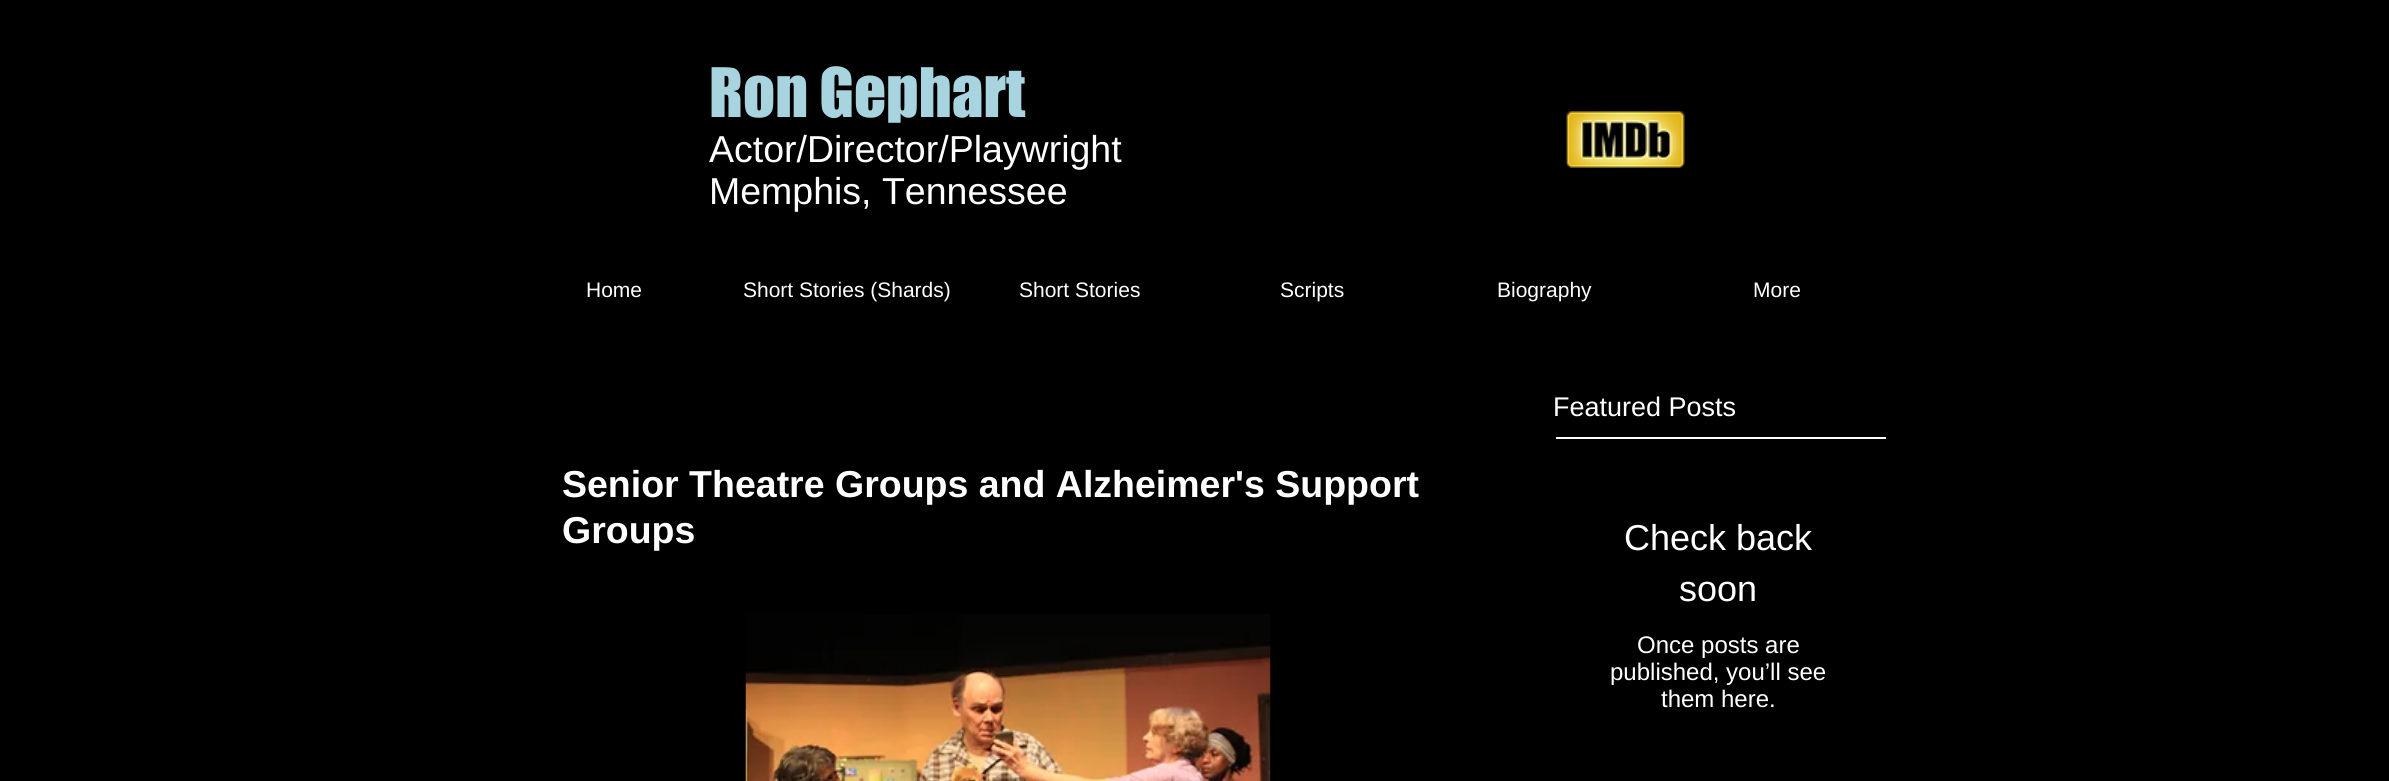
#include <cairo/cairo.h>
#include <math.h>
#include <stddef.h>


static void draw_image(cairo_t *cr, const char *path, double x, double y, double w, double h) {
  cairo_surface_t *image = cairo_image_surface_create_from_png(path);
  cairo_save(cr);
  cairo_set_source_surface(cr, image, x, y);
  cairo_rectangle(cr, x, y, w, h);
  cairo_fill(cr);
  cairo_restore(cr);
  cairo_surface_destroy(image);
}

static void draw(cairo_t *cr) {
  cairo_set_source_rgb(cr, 0, 0, 0);
  cairo_paint(cr);
  draw_image(cr, "images/1.png", 1566, 111, 120, 57);
  cairo_set_source_rgb(cr, 1, 1, 1);
  cairo_rectangle(cr, 1556, 437, 330, 2);
  cairo_fill(cr);
  draw_image(cr, "images/2.png", 745, 614, 526, 167);
  cairo_select_font_face(cr, "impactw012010", CAIRO_FONT_SLANT_NORMAL, CAIRO_FONT_WEIGHT_NORMAL);
  cairo_set_font_size(cr, 63);
  cairo_set_source_rgb(cr, 168 / 255.0, 212 / 255.0, 224 / 255.0);
  cairo_move_to(cr, 709, 117);
  cairo_show_text(cr, "Ron Gephart");
  cairo_select_font_face(cr, "Liberation Sans", CAIRO_FONT_SLANT_NORMAL, CAIRO_FONT_WEIGHT_NORMAL);
  cairo_set_font_size(cr, 37.5);
  cairo_set_source_rgb(cr, 1, 1, 1);
  cairo_move_to(cr, 709, 162);
  cairo_show_text(cr, "Actor/Director/Playwright");
  cairo_move_to(cr, 709, 204);
  cairo_show_text(cr, "Memphis, Tennessee");
  cairo_set_font_size(cr, 21);
  cairo_move_to(cr, 586, 297);
  cairo_show_text(cr, "Home");
  cairo_move_to(cr, 743, 297);
  cairo_show_text(cr, "Short Stories (Shards)");
  cairo_move_to(cr, 1019, 297);
  cairo_show_text(cr, "Short Stories");
  cairo_move_to(cr, 1280, 297);
  cairo_show_text(cr, "Scripts");
  cairo_move_to(cr, 1497, 297);
  cairo_show_text(cr, "Biography");
  cairo_move_to(cr, 1753, 297);
  cairo_show_text(cr, "More");
  cairo_set_font_size(cr, 27);
  cairo_move_to(cr, 1553, 416);
  cairo_show_text(cr, "Featured Posts");
  cairo_select_font_face(cr, "Liberation Sans", CAIRO_FONT_SLANT_NORMAL, CAIRO_FONT_WEIGHT_BOLD);
  cairo_set_font_size(cr, 37.5);
  cairo_move_to(cr, 562, 497);
  cairo_show_text(cr, "Senior Theatre Groups and Alzheimer's Support");
  cairo_move_to(cr, 562, 543);
  cairo_show_text(cr, "Groups");
  cairo_select_font_face(cr, "Liberation Sans", CAIRO_FONT_SLANT_NORMAL, CAIRO_FONT_WEIGHT_NORMAL);
  cairo_set_font_size(cr, 36);
  cairo_move_to(cr, 1624, 550);
  cairo_show_text(cr, "Check back");
  cairo_move_to(cr, 1679, 601);
  cairo_show_text(cr, "soon");
  cairo_set_font_size(cr, 24);
  cairo_move_to(cr, 1637, 653);
  cairo_show_text(cr, "Once posts are");
  cairo_move_to(cr, 1610, 680);
  cairo_show_text(cr, "published, you’ll see");
  cairo_move_to(cr, 1661, 707);
  cairo_show_text(cr, "them here.");
}

int main(void) {
  cairo_surface_t *surface = cairo_image_surface_create(CAIRO_FORMAT_RGB24, 2389, 781);
  cairo_t *cr = cairo_create(surface);
  cairo_font_options_t *options = cairo_font_options_create();
  cairo_font_options_set_hint_metrics(options, CAIRO_HINT_METRICS_OFF);
  cairo_font_options_set_hint_style(options, CAIRO_HINT_STYLE_NONE);
  cairo_set_font_options(cr, options);
  cairo_set_miter_limit(cr, 4);
  draw(cr);
  cairo_surface_write_to_png(surface, "out.png");
  cairo_font_options_destroy(options);
  cairo_destroy(cr);
  cairo_surface_destroy(surface);
  return 0;
}
